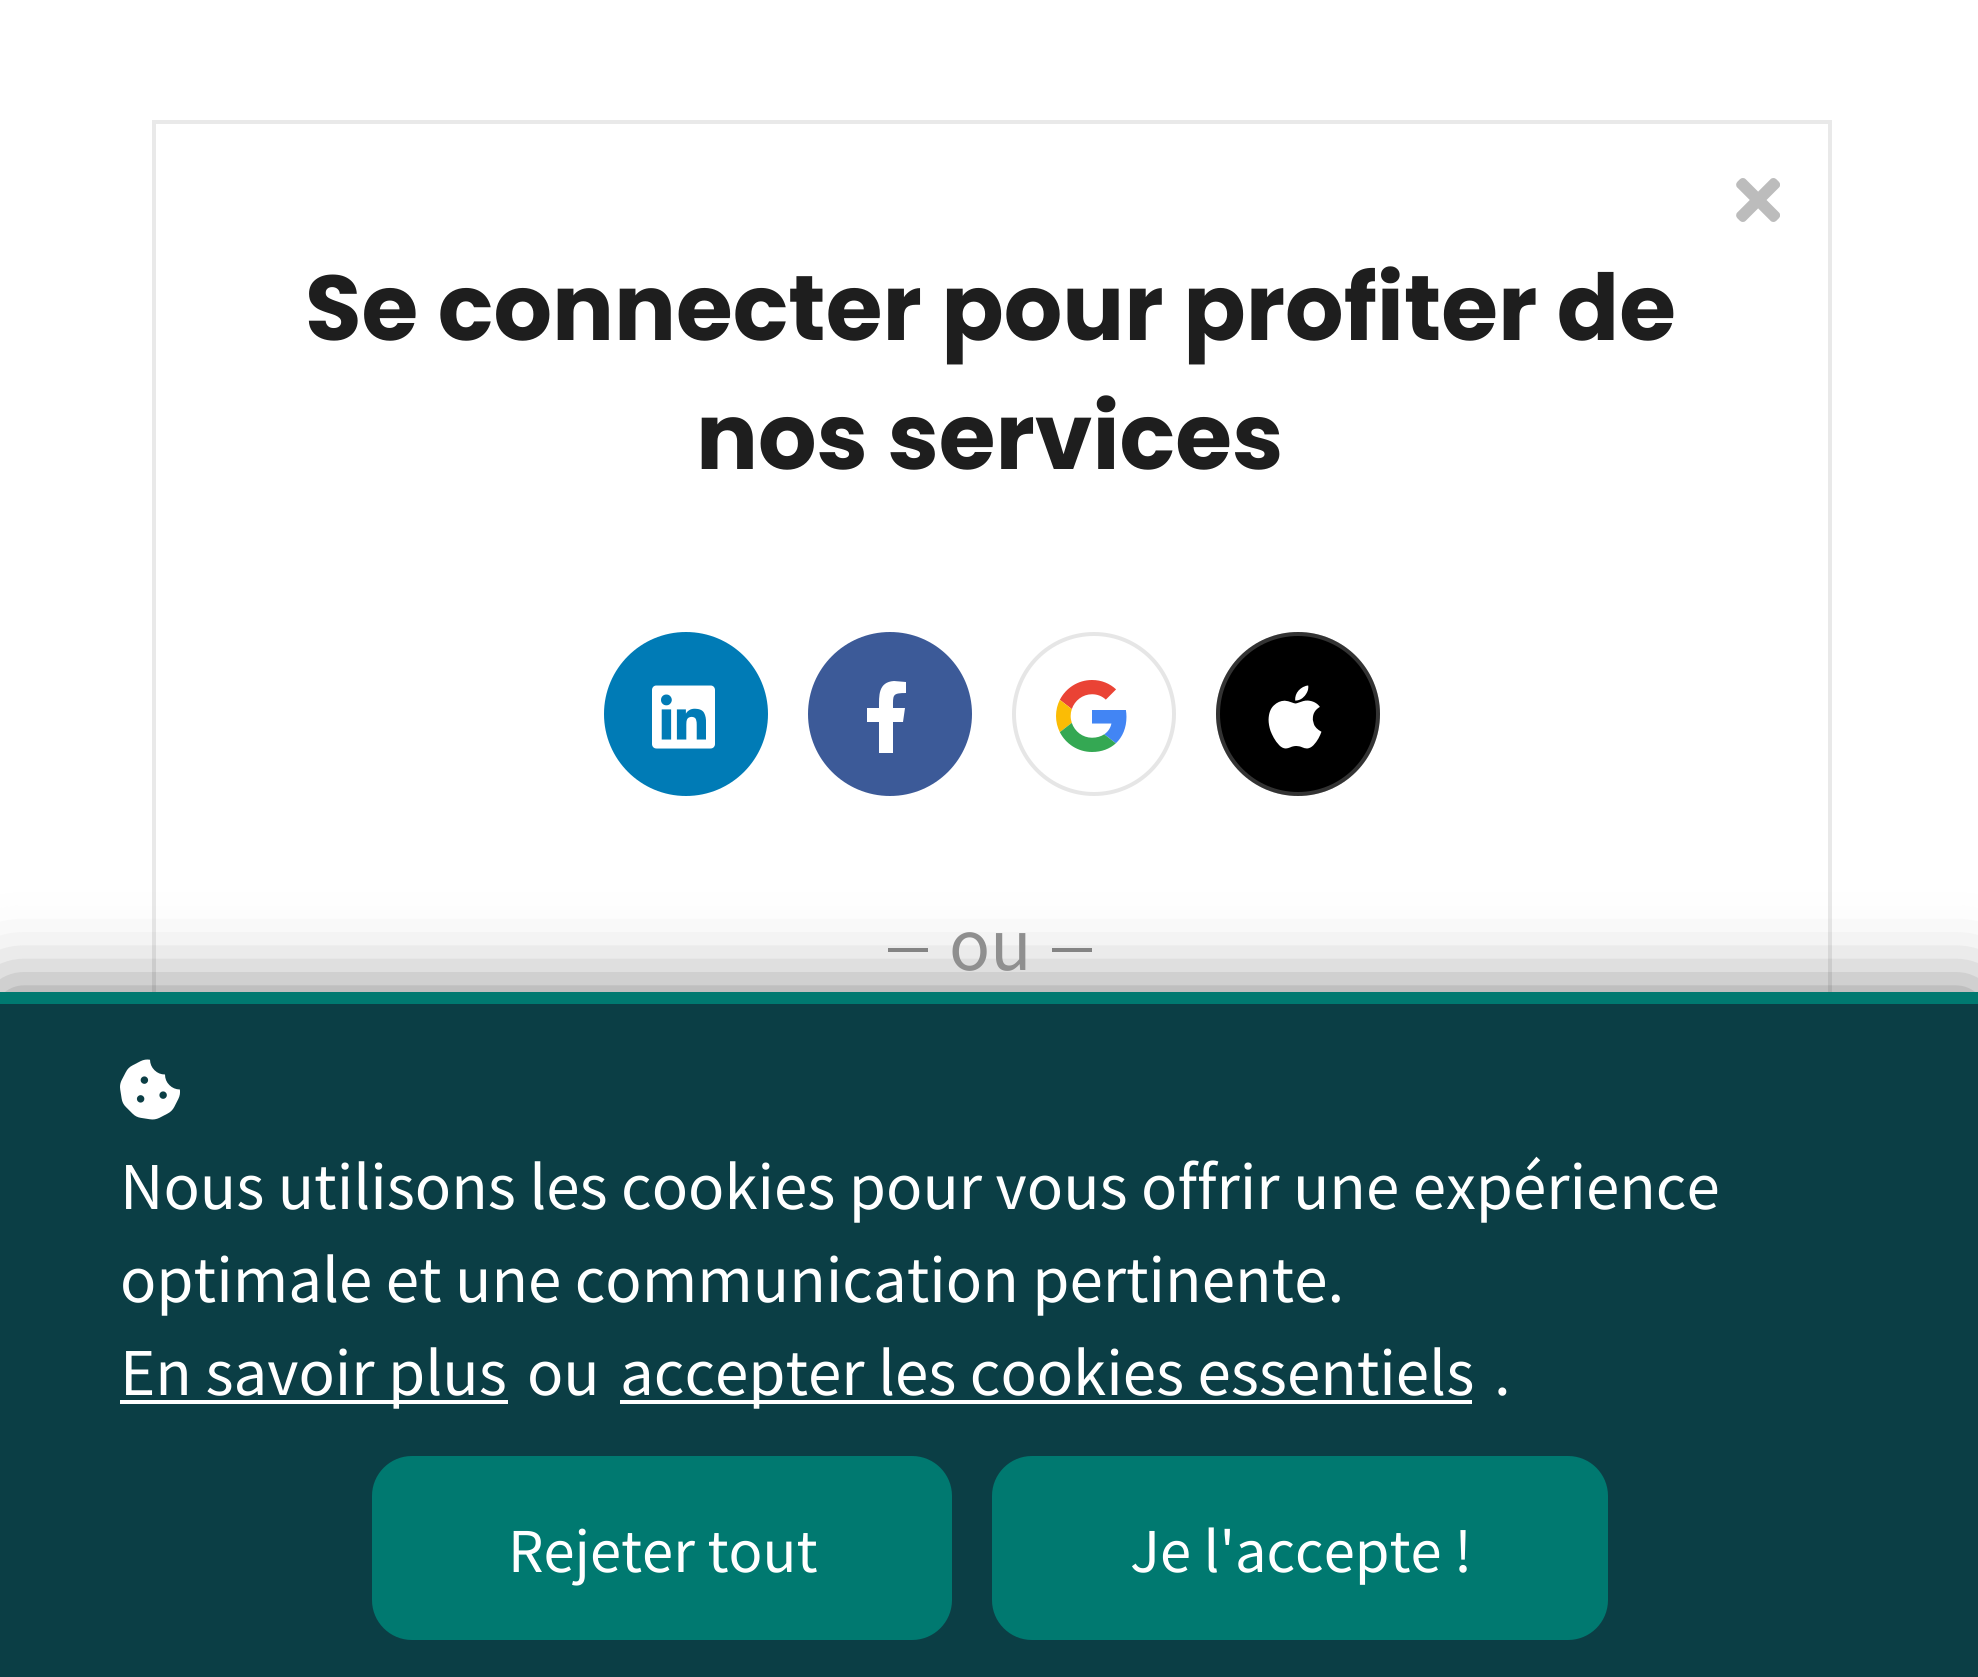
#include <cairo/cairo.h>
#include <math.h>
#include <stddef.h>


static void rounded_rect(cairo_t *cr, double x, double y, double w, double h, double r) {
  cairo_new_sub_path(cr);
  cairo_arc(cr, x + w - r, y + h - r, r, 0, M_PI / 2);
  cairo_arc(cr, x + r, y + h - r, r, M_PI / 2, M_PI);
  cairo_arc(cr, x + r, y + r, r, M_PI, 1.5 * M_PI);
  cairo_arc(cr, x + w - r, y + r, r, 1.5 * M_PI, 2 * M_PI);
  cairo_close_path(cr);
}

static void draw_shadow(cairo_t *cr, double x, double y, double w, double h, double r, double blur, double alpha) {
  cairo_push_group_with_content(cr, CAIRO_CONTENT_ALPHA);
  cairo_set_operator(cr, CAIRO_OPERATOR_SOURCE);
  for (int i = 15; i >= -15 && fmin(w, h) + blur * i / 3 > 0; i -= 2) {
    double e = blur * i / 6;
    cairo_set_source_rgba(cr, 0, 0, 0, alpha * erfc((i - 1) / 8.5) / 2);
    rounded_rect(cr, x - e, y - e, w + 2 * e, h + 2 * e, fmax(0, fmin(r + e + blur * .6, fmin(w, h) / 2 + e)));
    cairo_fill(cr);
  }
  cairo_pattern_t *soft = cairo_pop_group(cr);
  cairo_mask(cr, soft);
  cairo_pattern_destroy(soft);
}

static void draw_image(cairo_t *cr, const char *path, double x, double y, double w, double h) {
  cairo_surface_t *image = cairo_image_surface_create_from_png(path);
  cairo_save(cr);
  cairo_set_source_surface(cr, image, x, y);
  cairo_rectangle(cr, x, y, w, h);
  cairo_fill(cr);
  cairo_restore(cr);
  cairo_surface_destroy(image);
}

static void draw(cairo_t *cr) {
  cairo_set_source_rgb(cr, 1, 1, 1);
  cairo_paint(cr);
  cairo_rectangle(cr, 154, 122, 1676, 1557);
  cairo_set_source_rgb(cr, 233 / 255.0, 233 / 255.0, 233 / 255.0);
  cairo_set_line_width(cr, 4);
  cairo_stroke(cr);
  draw_image(cr, "images/1.png", 1736, 178, 44, 44);
  cairo_set_source_rgb(cr, 0, 123 / 255.0, 182 / 255.0);
  cairo_arc(cr, 686, 714, 82, 0, 2 * M_PI);
  cairo_fill(cr);
  draw_image(cr, "images/2.png", 652, 685, 63, 64);
  cairo_set_source_rgb(cr, 60 / 255.0, 90 / 255.0, 152 / 255.0);
  cairo_arc(cr, 890, 714, 82, 0, 2 * M_PI);
  cairo_fill(cr);
  cairo_set_source_rgb(cr, 1, 1, 1);
  cairo_new_path(cr);
  cairo_move_to(cr, 903, 722);
  cairo_line_to(cr, 905, 708);
  cairo_line_to(cr, 893, 708);
  cairo_curve_to(cr, 893, 695, 892, 693, 906, 693);
  cairo_line_to(cr, 906, 682);
  cairo_line_to(cr, 894, 681);
  cairo_curve_to(cr, 878, 682, 879, 696, 879, 708);
  cairo_line_to(cr, 867, 708);
  cairo_line_to(cr, 867, 722);
  cairo_line_to(cr, 879, 722);
  cairo_line_to(cr, 879, 753);
  cairo_line_to(cr, 893, 753);
  cairo_line_to(cr, 893, 722);
  cairo_close_path(cr);
  cairo_fill(cr);
  cairo_arc(cr, 1094, 714, 80, 0, 2 * M_PI);
  cairo_set_source_rgb(cr, 230 / 255.0, 230 / 255.0, 230 / 255.0);
  cairo_stroke(cr);
  draw_image(cr, "images/3.png", 1056, 680, 71, 72);
  cairo_set_source_rgb(cr, 0, 0, 0);
  cairo_arc(cr, 1298, 714, 82, 0, 2 * M_PI);
  cairo_fill(cr);
  cairo_arc(cr, 1298, 714, 80, 0, 2 * M_PI);
  cairo_set_source_rgba(cr, 1, 1, 1, 0.2);
  cairo_stroke(cr);
  draw_image(cr, "images/4.png", 1268, 685, 54, 64);
  cairo_set_source_rgb(cr, 143 / 255.0, 143 / 255.0, 143 / 255.0);
  cairo_rectangle(cr, 888, 948, 40, 4);
  cairo_fill(cr);
  cairo_rectangle(cr, 1052, 948, 40, 4);
  cairo_fill(cr);
  cairo_set_source_rgb(cr, 0, 0, 0);
  draw_shadow(cr, 0, 992, 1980, 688, 0, 40, 0.5);
  cairo_set_source_rgb(cr, 11 / 255.0, 62 / 255.0, 69 / 255.0);
  cairo_rectangle(cr, 0, 1004, 1978, 673);
  cairo_fill(cr);
  cairo_set_source_rgb(cr, 0, 121 / 255.0, 112 / 255.0);
  cairo_rectangle(cr, 0, 992, 1978, 12);
  cairo_fill(cr);
  draw_image(cr, "images/5.png", 120, 1059, 60, 61);
  cairo_set_source_rgb(cr, 1, 1, 1);
  cairo_rectangle(cr, 120, 1400, 388, 4);
  cairo_fill(cr);
  cairo_rectangle(cr, 620, 1400, 852, 4);
  cairo_fill(cr);
  cairo_set_source_rgb(cr, 0, 121 / 255.0, 112 / 255.0);
  rounded_rect(cr, 372, 1456, 580, 184, 40);
  cairo_fill(cr);
  rounded_rect(cr, 992, 1456, 616, 184, 40);
  cairo_fill(cr);
  cairo_select_font_face(cr, "Poppins", CAIRO_FONT_SLANT_NORMAL, CAIRO_FONT_WEIGHT_BOLD);
  cairo_set_font_size(cr, 92);
  cairo_set_source_rgb(cr, 30 / 255.0, 30 / 255.0, 30 / 255.0);
  cairo_move_to(cr, 305, 340);
  cairo_show_text(cr, "Se connecter pour profiter de");
  cairo_move_to(cr, 696, 469);
  cairo_show_text(cr, "nos services");
  cairo_select_font_face(cr, "Noto Sans JP", CAIRO_FONT_SLANT_NORMAL, CAIRO_FONT_WEIGHT_NORMAL);
  cairo_set_font_size(cr, 68);
  cairo_set_source_rgb(cr, 143 / 255.0, 143 / 255.0, 143 / 255.0);
  cairo_move_to(cr, 949, 970);
  cairo_show_text(cr, "ou");
  cairo_set_font_size(cr, 60);
  cairo_set_source_rgb(cr, 1, 1, 1);
  cairo_move_to(cr, 120, 1209);
  cairo_show_text(cr, "Nous utilisons les cookies pour vous offrir une expérience");
  cairo_move_to(cr, 120, 1302);
  cairo_show_text(cr, "optimale et une communication pertinente.");
  cairo_move_to(cr, 120, 1395);
  cairo_show_text(cr, "En savoir plus");
  cairo_move_to(cr, 527, 1395);
  cairo_show_text(cr, "ou");
  cairo_move_to(cr, 620, 1395);
  cairo_show_text(cr, "accepter les cookies essentiels");
  cairo_move_to(cr, 1494, 1395);
  cairo_show_text(cr, ".");
  cairo_set_font_size(cr, 56);
  cairo_move_to(cr, 508, 1572);
  cairo_show_text(cr, "Rejeter tout");
  cairo_move_to(cr, 1130, 1572);
  cairo_show_text(cr, "Je l'accepte !");
}

int main(void) {
  cairo_surface_t *surface = cairo_image_surface_create(CAIRO_FORMAT_RGB24, 1978, 1677);
  cairo_t *cr = cairo_create(surface);
  cairo_font_options_t *options = cairo_font_options_create();
  cairo_font_options_set_hint_metrics(options, CAIRO_HINT_METRICS_OFF);
  cairo_font_options_set_hint_style(options, CAIRO_HINT_STYLE_NONE);
  cairo_set_font_options(cr, options);
  cairo_set_miter_limit(cr, 4);
  draw(cr);
  cairo_surface_write_to_png(surface, "out.png");
  cairo_font_options_destroy(options);
  cairo_destroy(cr);
  cairo_surface_destroy(surface);
  return 0;
}
